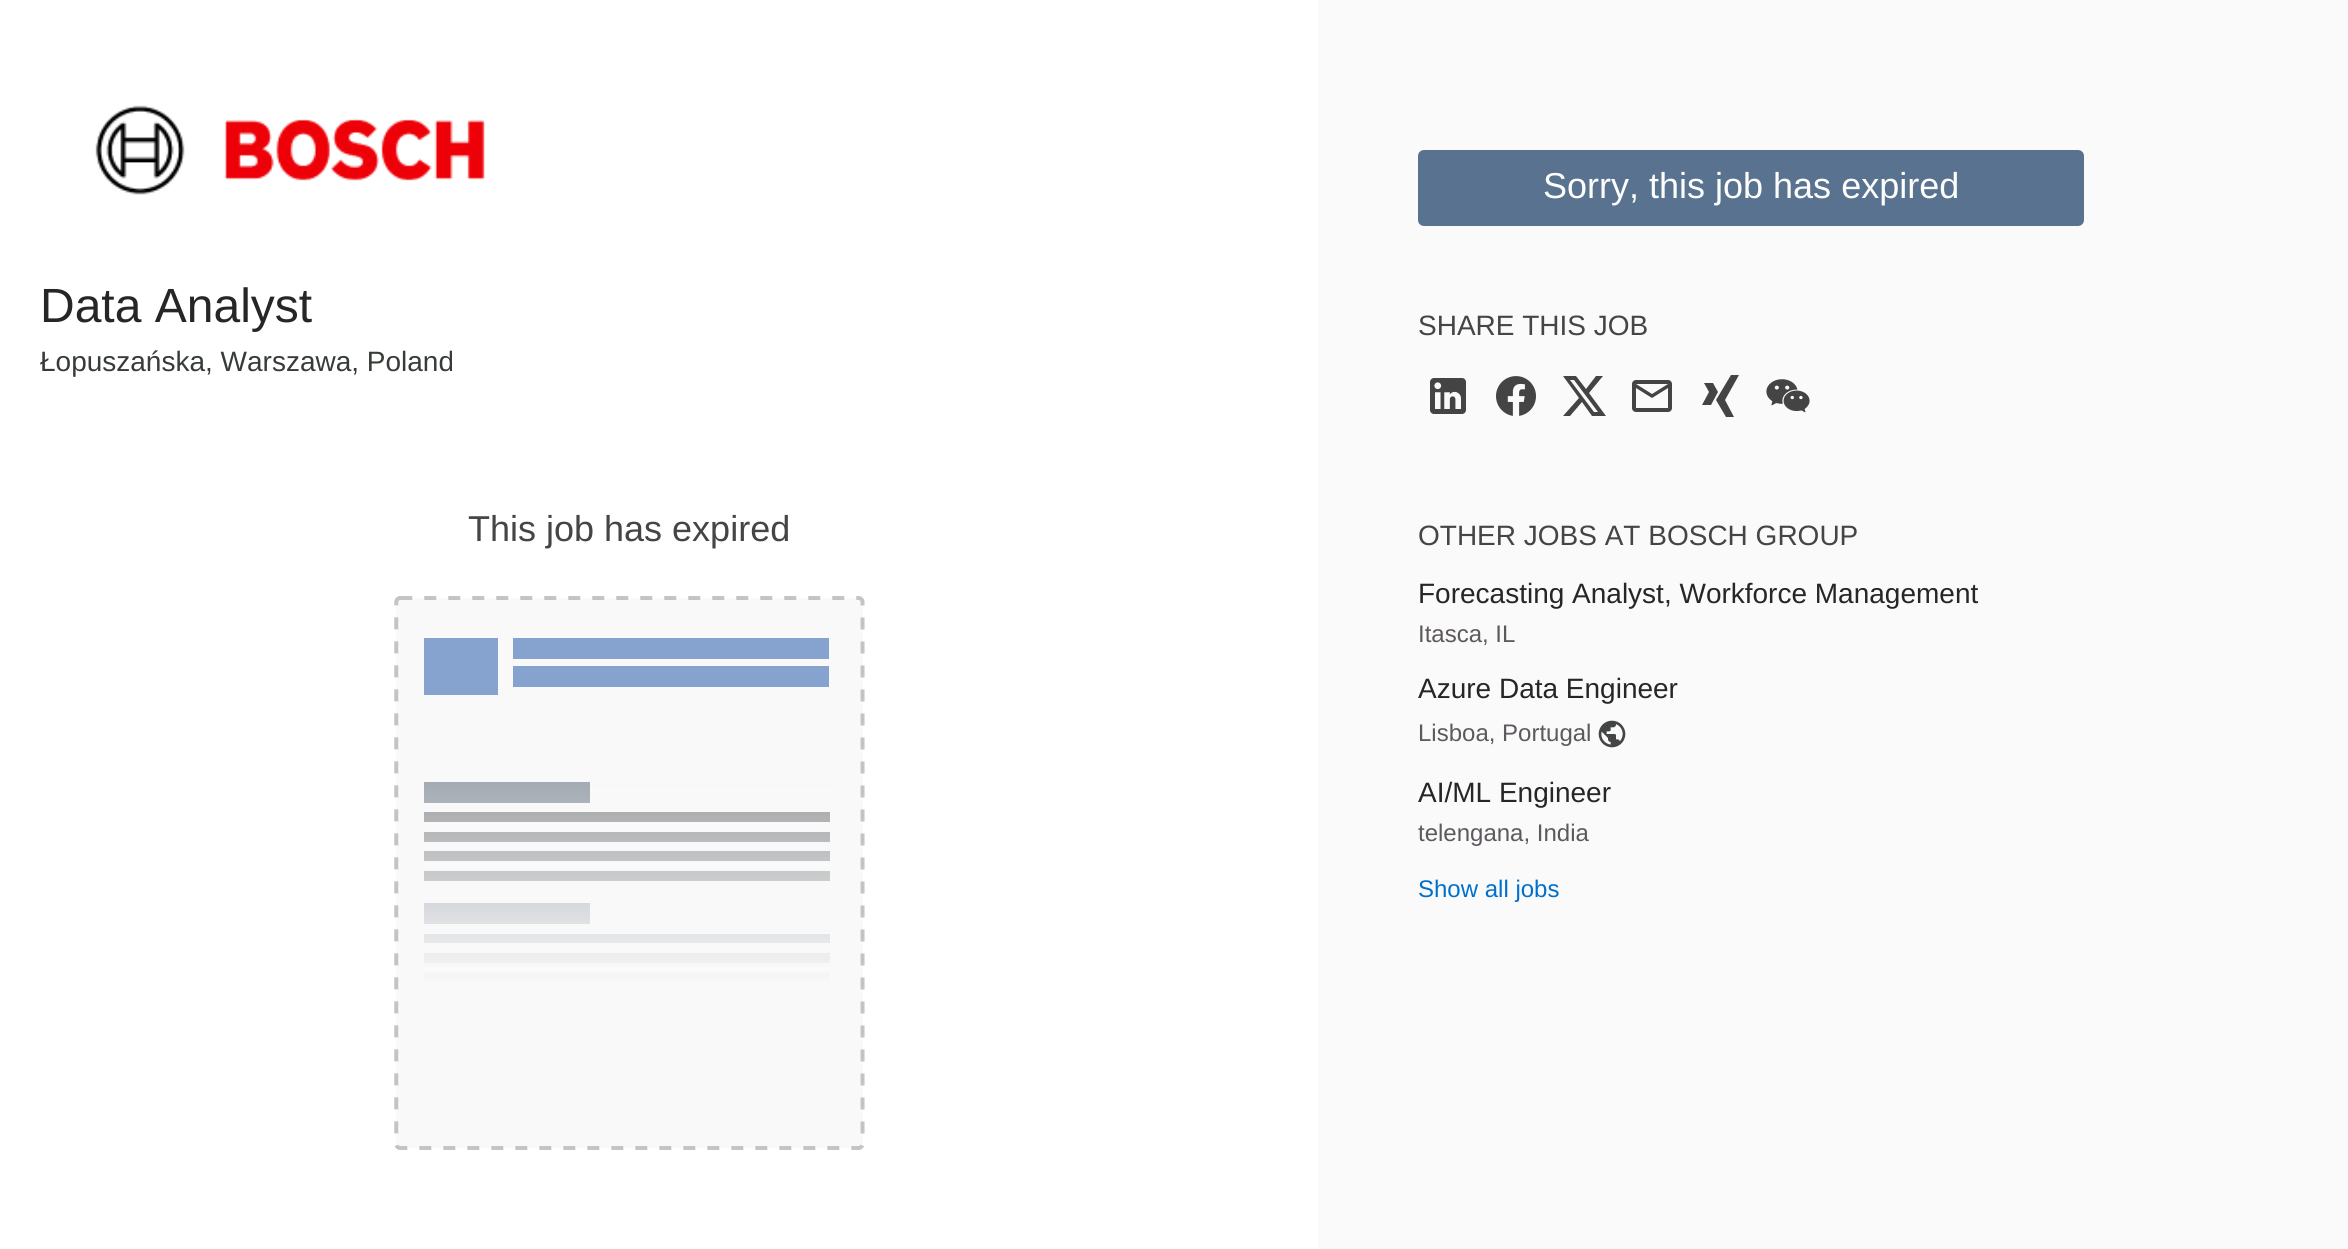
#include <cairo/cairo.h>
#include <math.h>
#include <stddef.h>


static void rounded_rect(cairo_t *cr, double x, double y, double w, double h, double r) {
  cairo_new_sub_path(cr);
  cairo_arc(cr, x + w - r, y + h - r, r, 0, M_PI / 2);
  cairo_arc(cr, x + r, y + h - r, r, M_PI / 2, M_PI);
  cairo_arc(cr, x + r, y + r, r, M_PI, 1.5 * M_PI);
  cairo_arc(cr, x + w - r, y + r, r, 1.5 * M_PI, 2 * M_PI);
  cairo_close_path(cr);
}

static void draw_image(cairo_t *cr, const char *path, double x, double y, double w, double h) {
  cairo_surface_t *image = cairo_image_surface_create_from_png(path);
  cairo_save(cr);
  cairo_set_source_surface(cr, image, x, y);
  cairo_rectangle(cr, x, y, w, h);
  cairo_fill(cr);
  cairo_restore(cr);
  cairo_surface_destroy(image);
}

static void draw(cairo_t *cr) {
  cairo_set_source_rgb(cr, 1, 1, 1);
  cairo_paint(cr);
  draw_image(cr, "images/1.png", 95, 105, 390, 90);
  draw_image(cr, "images/2.png", 394, 596, 471, 554);
  cairo_set_source_rgb(cr, 250 / 255.0, 250 / 255.0, 250 / 255.0);
  cairo_rectangle(cr, 1318, 0, 1030, 1249);
  cairo_fill(cr);
  cairo_set_source_rgb(cr, 88 / 255.0, 114 / 255.0, 143 / 255.0);
  rounded_rect(cr, 1418, 150, 666, 76, 6);
  cairo_fill(cr);
  draw_image(cr, "images/3.png", 1430, 378, 36, 36);
  draw_image(cr, "images/4.png", 1496, 376, 40, 40);
  cairo_set_source_rgb(cr, 68 / 255.0, 68 / 255.0, 68 / 255.0);
  cairo_new_path(cr);
  cairo_move_to(cr, 1596, 376);
  cairo_line_to(cr, 1603, 376);
  cairo_line_to(cr, 1589, 393);
  cairo_line_to(cr, 1606, 416);
  cairo_line_to(cr, 1592, 416);
  cairo_line_to(cr, 1582, 402);
  cairo_line_to(cr, 1570, 416);
  cairo_line_to(cr, 1563, 416);
  cairo_line_to(cr, 1579, 398);
  cairo_line_to(cr, 1563, 376);
  cairo_line_to(cr, 1576, 376);
  cairo_line_to(cr, 1586, 389);
  cairo_close_path(cr);
  cairo_move_to(cr, 1594, 412);
  cairo_line_to(cr, 1598, 412);
  cairo_line_to(cr, 1574, 380);
  cairo_line_to(cr, 1570, 380);
  cairo_close_path(cr);
  cairo_fill(cr);
  draw_image(cr, "images/5.png", 1632, 380, 40, 32);
  cairo_new_path(cr);
  cairo_move_to(cr, 1716, 400);
  cairo_line_to(cr, 1731, 375);
  cairo_line_to(cr, 1739, 375);
  cairo_line_to(cr, 1725, 400);
  cairo_line_to(cr, 1734, 417);
  cairo_line_to(cr, 1726, 417);
  cairo_close_path(cr);
  cairo_move_to(cr, 1709, 392);
  cairo_line_to(cr, 1704, 383);
  cairo_line_to(cr, 1713, 383);
  cairo_line_to(cr, 1718, 392);
  cairo_line_to(cr, 1711, 405);
  cairo_line_to(cr, 1702, 405);
  cairo_close_path(cr);
  cairo_fill(cr);
  draw_image(cr, "images/6.png", 1766, 379, 44, 34);
  draw_image(cr, "images/7.png", 1598, 720, 28, 28);
  cairo_select_font_face(cr, "Liberation Sans", CAIRO_FONT_SLANT_NORMAL, CAIRO_FONT_WEIGHT_NORMAL);
  cairo_set_font_size(cr, 48);
  cairo_set_source_rgb(cr, 39 / 255.0, 37 / 255.0, 37 / 255.0);
  cairo_move_to(cr, 40, 322);
  cairo_show_text(cr, "Data Analyst");
  cairo_set_font_size(cr, 28);
  cairo_set_source_rgb(cr, 56 / 255.0, 60 / 255.0, 56 / 255.0);
  cairo_move_to(cr, 40, 371);
  cairo_show_text(cr, "Łopuszańska, Warszawa, Poland");
  cairo_set_font_size(cr, 36);
  cairo_set_source_rgb(cr, 68 / 255.0, 69 / 255.0, 69 / 255.0);
  cairo_move_to(cr, 468, 541);
  cairo_show_text(cr, "This job has expired");
  cairo_set_source_rgb(cr, 253 / 255.0, 253 / 255.0, 253 / 255.0);
  cairo_move_to(cr, 1543, 198);
  cairo_show_text(cr, "Sorry, this job has expired");
  cairo_set_font_size(cr, 28);
  cairo_set_source_rgb(cr, 68 / 255.0, 69 / 255.0, 69 / 255.0);
  cairo_move_to(cr, 1418, 335);
  cairo_show_text(cr, "SHARE THIS JOB");
  cairo_move_to(cr, 1418, 545);
  cairo_show_text(cr, "OTHER JOBS AT BOSCH GROUP");
  cairo_set_source_rgb(cr, 39 / 255.0, 37 / 255.0, 37 / 255.0);
  cairo_move_to(cr, 1418, 603);
  cairo_show_text(cr, "Forecasting Analyst, Workforce Management");
  cairo_set_font_size(cr, 24);
  cairo_set_source_rgb(cr, 94 / 255.0, 89 / 255.0, 94 / 255.0);
  cairo_move_to(cr, 1418, 642);
  cairo_show_text(cr, "Itasca, IL");
  cairo_set_font_size(cr, 28);
  cairo_set_source_rgb(cr, 39 / 255.0, 37 / 255.0, 37 / 255.0);
  cairo_move_to(cr, 1418, 698);
  cairo_show_text(cr, "Azure Data Engineer");
  cairo_set_font_size(cr, 24);
  cairo_set_source_rgb(cr, 94 / 255.0, 89 / 255.0, 94 / 255.0);
  cairo_move_to(cr, 1418, 741);
  cairo_show_text(cr, "Lisboa, Portugal");
  cairo_set_font_size(cr, 28);
  cairo_set_source_rgb(cr, 39 / 255.0, 37 / 255.0, 37 / 255.0);
  cairo_move_to(cr, 1418, 802);
  cairo_show_text(cr, "AI/ML Engineer");
  cairo_set_font_size(cr, 24);
  cairo_set_source_rgb(cr, 94 / 255.0, 89 / 255.0, 94 / 255.0);
  cairo_move_to(cr, 1418, 841);
  cairo_show_text(cr, "telengana, India");
  cairo_set_source_rgb(cr, 0, 112 / 255.0, 205 / 255.0);
  cairo_move_to(cr, 1418, 897);
  cairo_show_text(cr, "Show all jobs");
}

int main(void) {
  cairo_surface_t *surface = cairo_image_surface_create(CAIRO_FORMAT_RGB24, 2348, 1249);
  cairo_t *cr = cairo_create(surface);
  cairo_font_options_t *options = cairo_font_options_create();
  cairo_font_options_set_hint_metrics(options, CAIRO_HINT_METRICS_OFF);
  cairo_font_options_set_hint_style(options, CAIRO_HINT_STYLE_NONE);
  cairo_set_font_options(cr, options);
  cairo_set_miter_limit(cr, 4);
  draw(cr);
  cairo_surface_write_to_png(surface, "out.png");
  cairo_font_options_destroy(options);
  cairo_destroy(cr);
  cairo_surface_destroy(surface);
  return 0;
}
